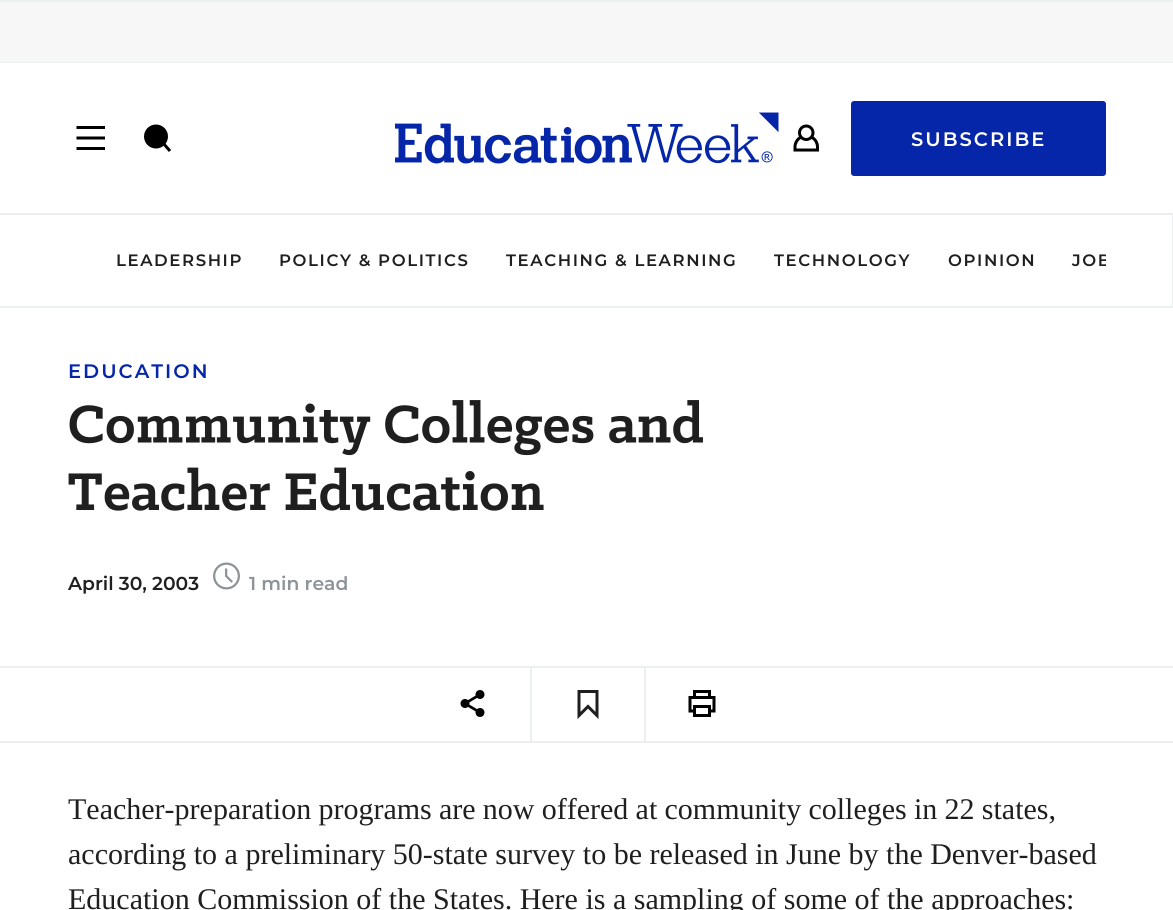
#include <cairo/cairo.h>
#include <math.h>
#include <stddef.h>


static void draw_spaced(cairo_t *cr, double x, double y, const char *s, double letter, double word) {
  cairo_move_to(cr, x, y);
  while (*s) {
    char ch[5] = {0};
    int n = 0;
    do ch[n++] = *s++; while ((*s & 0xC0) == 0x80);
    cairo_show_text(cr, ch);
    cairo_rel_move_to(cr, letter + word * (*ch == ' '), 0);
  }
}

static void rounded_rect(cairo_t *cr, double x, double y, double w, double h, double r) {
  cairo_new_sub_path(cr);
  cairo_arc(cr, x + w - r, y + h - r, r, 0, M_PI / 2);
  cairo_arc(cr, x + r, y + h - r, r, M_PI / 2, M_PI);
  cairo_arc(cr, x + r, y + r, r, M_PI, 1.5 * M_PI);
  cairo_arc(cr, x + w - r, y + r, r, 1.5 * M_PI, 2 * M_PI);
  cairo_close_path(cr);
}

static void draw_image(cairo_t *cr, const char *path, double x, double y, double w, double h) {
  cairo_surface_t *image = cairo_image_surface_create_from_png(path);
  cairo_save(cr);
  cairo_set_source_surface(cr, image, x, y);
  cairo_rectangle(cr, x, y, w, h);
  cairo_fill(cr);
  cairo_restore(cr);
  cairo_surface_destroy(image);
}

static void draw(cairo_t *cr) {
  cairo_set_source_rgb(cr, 1, 1, 1);
  cairo_paint(cr);
  cairo_set_source_rgb(cr, 247 / 255.0, 247 / 255.0, 247 / 255.0);
  cairo_rectangle(cr, 0, 2, 1173, 60);
  cairo_fill(cr);
  cairo_set_source_rgb(cr, 235 / 255.0, 239 / 255.0, 240 / 255.0);
  cairo_rectangle(cr, 0, 0, 1173, 2);
  cairo_fill(cr);
  cairo_rectangle(cr, 0, 62, 1173, 1);
  cairo_fill(cr);
  cairo_save(cr);
  cairo_rectangle(cr, 0, 213, 1173, 95);
  cairo_clip(cr);
  cairo_set_fill_rule(cr, CAIRO_FILL_RULE_EVEN_ODD);
  cairo_new_path(cr);
  cairo_move_to(cr, -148, 64);
  cairo_line_to(cr, 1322, 64);
  cairo_line_to(cr, 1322, 456);
  cairo_line_to(cr, -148, 456);
  cairo_close_path(cr);
  cairo_move_to(cr, -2, 212);
  cairo_line_to(cr, 1172, 212);
  cairo_line_to(cr, 1172, 306);
  cairo_line_to(cr, -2, 306);
  cairo_close_path(cr);
  cairo_fill(cr);
  cairo_restore(cr);
  cairo_rectangle(cr, 0, 213, 1173, 2);
  cairo_fill(cr);
  draw_image(cr, "images/1.png", 76, 126, 29, 24);
  cairo_set_source_rgb(cr, 0, 0, 0);
  cairo_arc(cr, 156, 136.5, 10.5, 0, 2 * M_PI);
  cairo_fill_preserve(cr);
  cairo_set_line_width(cr, 3);
  cairo_stroke(cr);
  cairo_new_path(cr);
  cairo_move_to(cr, 163, 143);
  cairo_line_to(cr, 170, 151);
  cairo_stroke(cr);
  draw_image(cr, "images/2.png", 395, 112, 384, 52);
  draw_image(cr, "images/3.png", 793, 124, 26, 28);
  cairo_set_source_rgb(cr, 6 / 255.0, 38 / 255.0, 169 / 255.0);
  rounded_rect(cr, 851, 101, 255, 75, 3);
  cairo_fill(cr);
  draw_image(cr, "images/4.png", 69, 400, 634, 56);
  draw_image(cr, "images/5.png", 68, 467, 476, 44);
  draw_image(cr, "images/6.png", 213, 562, 27, 28);
  cairo_set_source_rgb(cr, 235 / 255.0, 239 / 255.0, 240 / 255.0);
  cairo_rectangle(cr, 530, 666, 2, 75);
  cairo_fill(cr);
  cairo_rectangle(cr, 644, 666, 2, 75);
  cairo_fill(cr);
  cairo_rectangle(cr, 0, 666, 1173, 2);
  cairo_fill(cr);
  draw_image(cr, "images/7.png", 460, 690, 25, 27);
  cairo_new_path(cr);
  cairo_move_to(cr, 579, 691.5);
  cairo_line_to(cr, 597, 691.5);
  cairo_line_to(cr, 597, 715.5);
  cairo_line_to(cr, 588, 706.5);
  cairo_line_to(cr, 579, 715.5);
  cairo_close_path(cr);
  cairo_set_source_rgb(cr, 31 / 255.0, 31 / 255.0, 31 / 255.0);
  cairo_stroke(cr);
  draw_image(cr, "images/8.png", 688, 690, 28, 27);
  cairo_set_source_rgb(cr, 235 / 255.0, 239 / 255.0, 240 / 255.0);
  cairo_rectangle(cr, 0, 741, 1173, 2);
  cairo_fill(cr);
  cairo_select_font_face(cr, "Montserrat SemiBold", CAIRO_FONT_SLANT_NORMAL, CAIRO_FONT_WEIGHT_NORMAL);
  cairo_set_font_size(cr, 19.5);
  cairo_set_source_rgb(cr, 1, 1, 1);
  draw_spaced(cr, 911, 146, "SUBSCRIBE", 2, 0);
  cairo_set_font_size(cr, 16.5);
  cairo_set_source_rgb(cr, 31 / 255.0, 31 / 255.0, 31 / 255.0);
  draw_spaced(cr, 116, 266, "LEADERSHIP", 1.6, 0);
  draw_spaced(cr, 279, 266, "POLICY & POLITICS", 1.6, 0);
  draw_spaced(cr, 506, 266, "TEACHING & LEARNING", 1.6, 0);
  draw_spaced(cr, 774, 266, "TECHNOLOGY", 1.6, 0);
  draw_spaced(cr, 948, 266, "OPINION", 1.6, 0);
  cairo_save(cr);
  cairo_rectangle(cr, 68, 213, 1038, 95);
  cairo_clip(cr);
  draw_spaced(cr, 1072, 266, "JOB", 1.6, 0);
  cairo_restore(cr);
  cairo_set_font_size(cr, 19.5);
  cairo_set_source_rgb(cr, 6 / 255.0, 38 / 255.0, 169 / 255.0);
  draw_spaced(cr, 68, 378, "EDUCATION", 2, 0);
  cairo_set_font_size(cr, 18.75);
  cairo_set_source_rgb(cr, 31 / 255.0, 31 / 255.0, 31 / 255.0);
  cairo_move_to(cr, 68, 590);
  cairo_show_text(cr, "April 30, 2003");
  cairo_set_source_rgb(cr, 141 / 255.0, 148 / 255.0, 152 / 255.0);
  cairo_move_to(cr, 249, 590);
  cairo_show_text(cr, "1 min read");
  cairo_select_font_face(cr, "Liberation Serif", CAIRO_FONT_SLANT_NORMAL, CAIRO_FONT_WEIGHT_NORMAL);
  cairo_set_font_size(cr, 30);
  cairo_set_source_rgb(cr, 31 / 255.0, 31 / 255.0, 31 / 255.0);
  draw_spaced(cr, 68, 819, "Teacher-preparation programs are now offered at community colleges in 22 states,", 0, -0.25);
  cairo_move_to(cr, 68, 864);
  cairo_show_text(cr, "according to a preliminary 50-state survey to be released in June by the Denver-based");
  cairo_move_to(cr, 68, 909);
  cairo_show_text(cr, "Education Commission of the States. Here is a sampling of some of the approaches:");
}

int main(void) {
  cairo_surface_t *surface = cairo_image_surface_create(CAIRO_FORMAT_RGB24, 1173, 910);
  cairo_t *cr = cairo_create(surface);
  cairo_font_options_t *options = cairo_font_options_create();
  cairo_font_options_set_hint_metrics(options, CAIRO_HINT_METRICS_OFF);
  cairo_font_options_set_hint_style(options, CAIRO_HINT_STYLE_NONE);
  cairo_set_font_options(cr, options);
  cairo_set_miter_limit(cr, 4);
  draw(cr);
  cairo_surface_write_to_png(surface, "out.png");
  cairo_font_options_destroy(options);
  cairo_destroy(cr);
  cairo_surface_destroy(surface);
  return 0;
}
